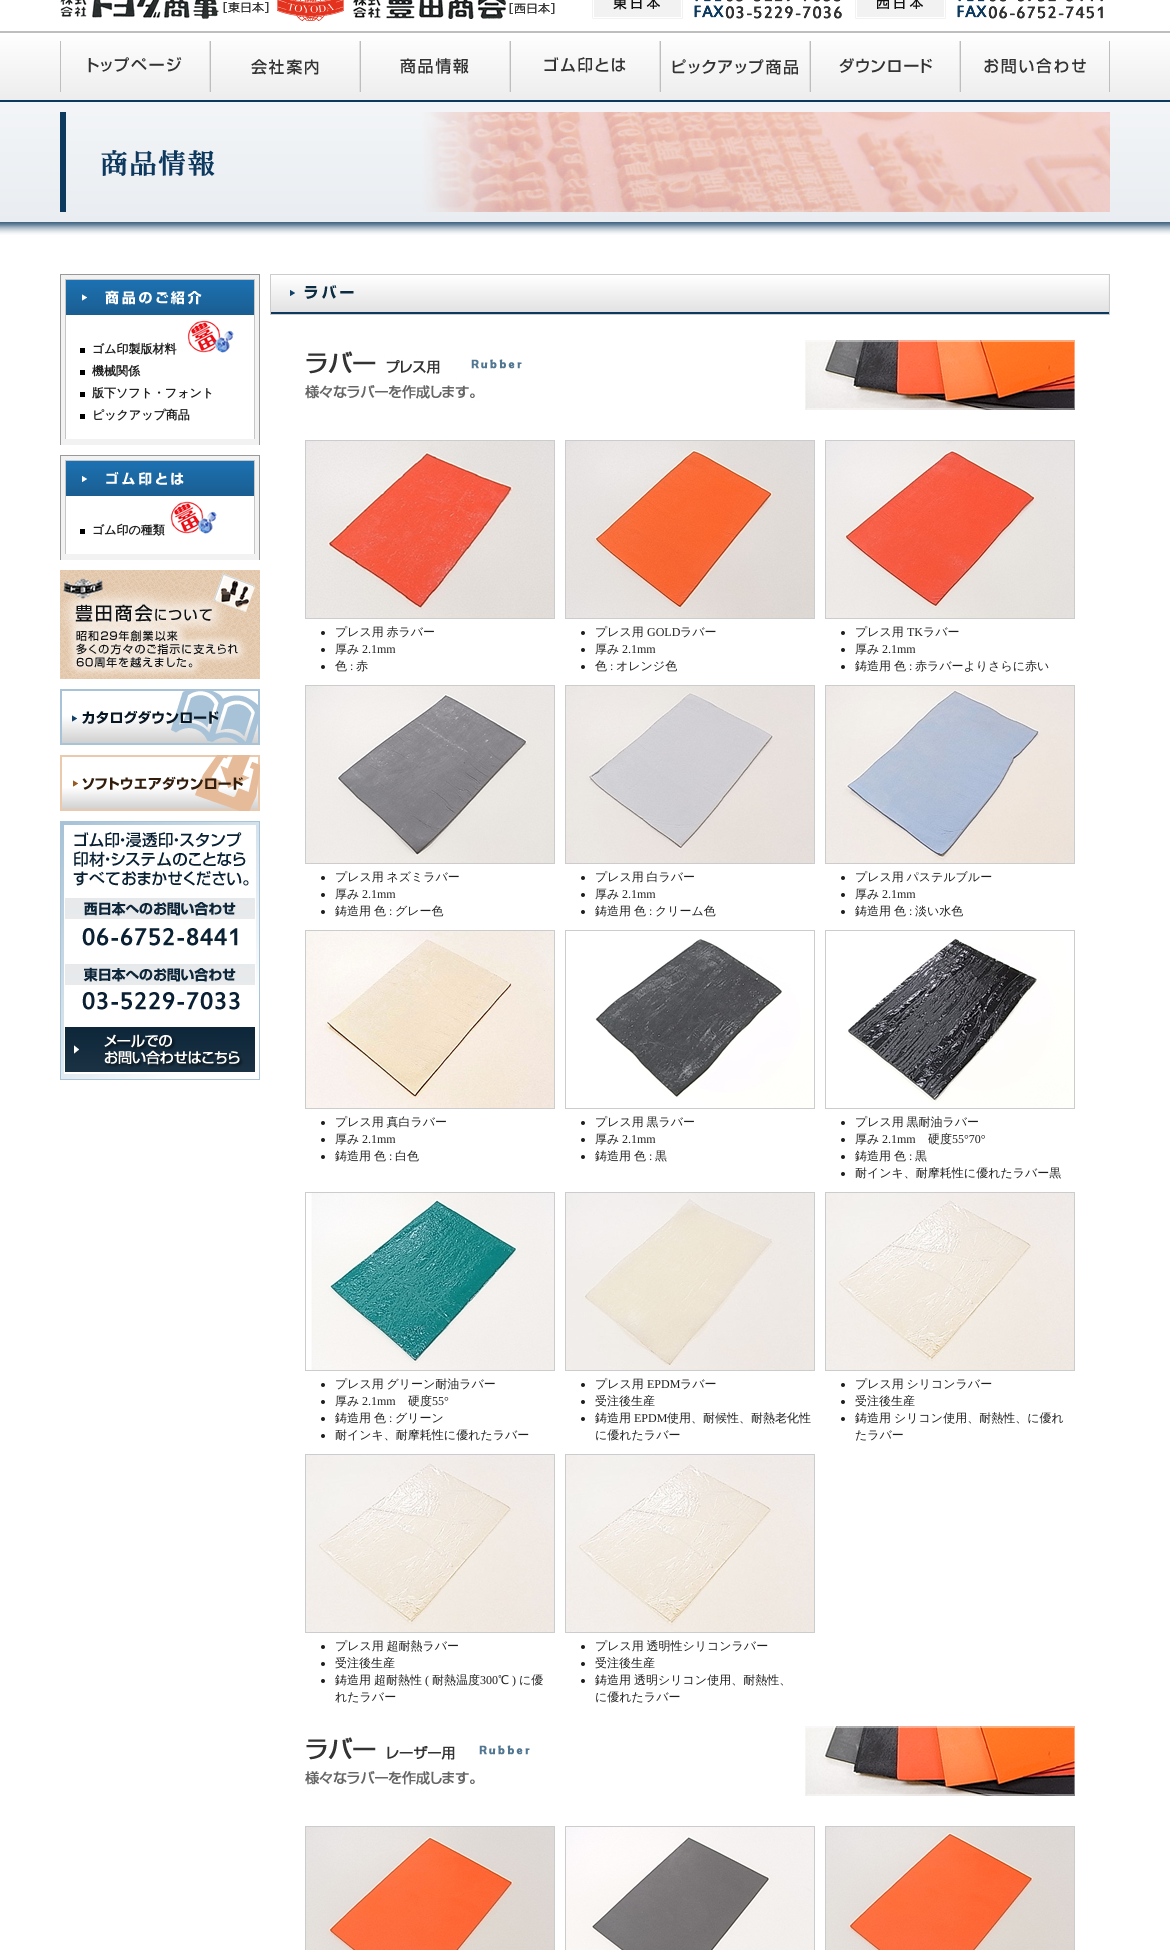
#include <cairo/cairo.h>
#include <math.h>
#include <stddef.h>


static void draw_spaced(cairo_t *cr, double x, double y, const char *s, double letter, double word) {
  cairo_move_to(cr, x, y);
  while (*s) {
    char ch[5] = {0};
    int n = 0;
    do ch[n++] = *s++; while ((*s & 0xC0) == 0x80);
    cairo_show_text(cr, ch);
    cairo_rel_move_to(cr, letter + word * (*ch == ' '), 0);
  }
}

static void draw_image(cairo_t *cr, const char *path, double x, double y, double w, double h) {
  cairo_surface_t *image = cairo_image_surface_create_from_png(path);
  cairo_save(cr);
  cairo_set_source_surface(cr, image, x, y);
  cairo_rectangle(cr, x, y, w, h);
  cairo_fill(cr);
  cairo_restore(cr);
  cairo_surface_destroy(image);
}

static void draw(cairo_t *cr) {
  cairo_set_source_rgb(cr, 1, 1, 1);
  cairo_paint(cr);
  draw_image(cr, "images/1.png", 60, 0, 495, 21);
  draw_image(cr, "images/2.png", 592, 0, 250, 19);
  draw_image(cr, "images/3.png", 855, 0, 248, 19);
  draw_image(cr, "images/4.png", 0, 31, 1170, 71);
  draw_image(cr, "images/5.png", 60, 41, 150, 51);
  draw_image(cr, "images/6.png", 210, 41, 150, 51);
  draw_image(cr, "images/7.png", 360, 41, 150, 51);
  draw_image(cr, "images/8.png", 510, 41, 150, 51);
  draw_image(cr, "images/9.png", 660, 41, 150, 51);
  draw_image(cr, "images/10.png", 810, 41, 150, 51);
  draw_image(cr, "images/11.png", 960, 41, 150, 51);
  draw_image(cr, "images/12.png", 0, 102, 1170, 133);
  draw_image(cr, "images/13.png", 60, 112, 1050, 100);
  draw_image(cr, "images/14.png", 60, 274, 200, 171);
  draw_image(cr, "images/15.png", 61, 274, 198, 41);
  cairo_set_source_rgb(cr, 0, 0, 0);
  cairo_rectangle(cr, 80, 348, 5, 5);
  cairo_fill(cr);
  draw_image(cr, "images/16.png", 187, 320, 47, 33);
  cairo_rectangle(cr, 80, 370, 5, 5);
  cairo_fill(cr);
  cairo_rectangle(cr, 80, 392, 5, 5);
  cairo_fill(cr);
  cairo_rectangle(cr, 80, 414, 5, 5);
  cairo_fill(cr);
  cairo_set_source_rgb(cr, 242 / 255.0, 242 / 255.0, 242 / 255.0);
  cairo_rectangle(cr, 61, 439, 198, 6);
  cairo_fill(cr);
  draw_image(cr, "images/17.png", 60, 455, 200, 105);
  draw_image(cr, "images/18.png", 61, 455, 198, 41);
  cairo_set_source_rgb(cr, 0, 0, 0);
  cairo_rectangle(cr, 80, 529, 5, 5);
  cairo_fill(cr);
  draw_image(cr, "images/16.png", 170, 501, 47, 33);
  cairo_set_source_rgb(cr, 242 / 255.0, 242 / 255.0, 242 / 255.0);
  cairo_rectangle(cr, 61, 554, 198, 6);
  cairo_fill(cr);
  draw_image(cr, "images/19.png", 60, 570, 200, 109);
  draw_image(cr, "images/20.png", 60, 689, 200, 56);
  draw_image(cr, "images/21.png", 60, 755, 200, 56);
  draw_image(cr, "images/22.png", 60, 821, 200, 259);
  draw_image(cr, "images/23.png", 270, 274, 840, 41);
  draw_image(cr, "images/24.png", 305, 340, 770, 70);
  draw_image(cr, "images/25.png", 305, 440, 250, 179);
  cairo_set_source_rgb(cr, 30 / 255.0, 30 / 255.0, 30 / 255.0);
  cairo_arc(cr, 323, 633, 2, 0, 2 * M_PI);
  cairo_fill(cr);
  cairo_arc(cr, 323, 650, 2, 0, 2 * M_PI);
  cairo_fill(cr);
  cairo_arc(cr, 323, 667, 2, 0, 2 * M_PI);
  cairo_fill(cr);
  draw_image(cr, "images/26.png", 565, 440, 250, 179);
  cairo_arc(cr, 583, 633, 2, 0, 2 * M_PI);
  cairo_fill(cr);
  cairo_arc(cr, 583, 650, 2, 0, 2 * M_PI);
  cairo_fill(cr);
  cairo_arc(cr, 583, 667, 2, 0, 2 * M_PI);
  cairo_fill(cr);
  draw_image(cr, "images/27.png", 825, 440, 250, 179);
  cairo_arc(cr, 843, 633, 2, 0, 2 * M_PI);
  cairo_fill(cr);
  cairo_arc(cr, 843, 650, 2, 0, 2 * M_PI);
  cairo_fill(cr);
  cairo_arc(cr, 843, 667, 2, 0, 2 * M_PI);
  cairo_fill(cr);
  draw_image(cr, "images/28.png", 305, 685, 250, 179);
  cairo_arc(cr, 323, 878, 2, 0, 2 * M_PI);
  cairo_fill(cr);
  cairo_arc(cr, 323, 895, 2, 0, 2 * M_PI);
  cairo_fill(cr);
  cairo_arc(cr, 323, 912, 2, 0, 2 * M_PI);
  cairo_fill(cr);
  draw_image(cr, "images/29.png", 565, 685, 250, 179);
  cairo_arc(cr, 583, 878, 2, 0, 2 * M_PI);
  cairo_fill(cr);
  cairo_arc(cr, 583, 895, 2, 0, 2 * M_PI);
  cairo_fill(cr);
  cairo_arc(cr, 583, 912, 2, 0, 2 * M_PI);
  cairo_fill(cr);
  draw_image(cr, "images/30.png", 825, 685, 250, 179);
  cairo_arc(cr, 843, 878, 2, 0, 2 * M_PI);
  cairo_fill(cr);
  cairo_arc(cr, 843, 895, 2, 0, 2 * M_PI);
  cairo_fill(cr);
  cairo_arc(cr, 843, 912, 2, 0, 2 * M_PI);
  cairo_fill(cr);
  draw_image(cr, "images/31.png", 305, 930, 250, 179);
  cairo_arc(cr, 323, 1123, 2, 0, 2 * M_PI);
  cairo_fill(cr);
  cairo_arc(cr, 323, 1140, 2, 0, 2 * M_PI);
  cairo_fill(cr);
  cairo_arc(cr, 323, 1157, 2, 0, 2 * M_PI);
  cairo_fill(cr);
  draw_image(cr, "images/32.png", 565, 930, 250, 179);
  cairo_arc(cr, 583, 1123, 2, 0, 2 * M_PI);
  cairo_fill(cr);
  cairo_arc(cr, 583, 1140, 2, 0, 2 * M_PI);
  cairo_fill(cr);
  cairo_arc(cr, 583, 1157, 2, 0, 2 * M_PI);
  cairo_fill(cr);
  draw_image(cr, "images/33.png", 825, 930, 250, 179);
  cairo_arc(cr, 843, 1123, 2, 0, 2 * M_PI);
  cairo_fill(cr);
  cairo_arc(cr, 843, 1140, 2, 0, 2 * M_PI);
  cairo_fill(cr);
  cairo_arc(cr, 843, 1157, 2, 0, 2 * M_PI);
  cairo_fill(cr);
  cairo_arc(cr, 843, 1174, 2, 0, 2 * M_PI);
  cairo_fill(cr);
  draw_image(cr, "images/34.png", 305, 1192, 250, 179);
  cairo_arc(cr, 323, 1385, 2, 0, 2 * M_PI);
  cairo_fill(cr);
  cairo_arc(cr, 323, 1402, 2, 0, 2 * M_PI);
  cairo_fill(cr);
  cairo_arc(cr, 323, 1419, 2, 0, 2 * M_PI);
  cairo_fill(cr);
  cairo_arc(cr, 323, 1436, 2, 0, 2 * M_PI);
  cairo_fill(cr);
  draw_image(cr, "images/35.png", 565, 1192, 250, 179);
  cairo_arc(cr, 583, 1385, 2, 0, 2 * M_PI);
  cairo_fill(cr);
  cairo_arc(cr, 583, 1402, 2, 0, 2 * M_PI);
  cairo_fill(cr);
  cairo_arc(cr, 583, 1419, 2, 0, 2 * M_PI);
  cairo_fill(cr);
  draw_image(cr, "images/36.png", 825, 1192, 250, 179);
  cairo_arc(cr, 843, 1385, 2, 0, 2 * M_PI);
  cairo_fill(cr);
  cairo_arc(cr, 843, 1402, 2, 0, 2 * M_PI);
  cairo_fill(cr);
  cairo_arc(cr, 843, 1419, 2, 0, 2 * M_PI);
  cairo_fill(cr);
  draw_image(cr, "images/37.png", 305, 1454, 250, 179);
  cairo_arc(cr, 323, 1647, 2, 0, 2 * M_PI);
  cairo_fill(cr);
  cairo_arc(cr, 323, 1664, 2, 0, 2 * M_PI);
  cairo_fill(cr);
  cairo_arc(cr, 323, 1681, 2, 0, 2 * M_PI);
  cairo_fill(cr);
  draw_image(cr, "images/38.png", 565, 1454, 250, 179);
  cairo_arc(cr, 583, 1647, 2, 0, 2 * M_PI);
  cairo_fill(cr);
  cairo_arc(cr, 583, 1664, 2, 0, 2 * M_PI);
  cairo_fill(cr);
  cairo_arc(cr, 583, 1681, 2, 0, 2 * M_PI);
  cairo_fill(cr);
  draw_image(cr, "images/39.png", 305, 1726, 770, 70);
  draw_image(cr, "images/40.png", 305, 1826, 250, 124);
  draw_image(cr, "images/41.png", 565, 1826, 250, 124);
  draw_image(cr, "images/42.png", 825, 1826, 250, 124);
  cairo_select_font_face(cr, "WenQuanYi Zen Hei", CAIRO_FONT_SLANT_NORMAL, CAIRO_FONT_WEIGHT_BOLD);
  cairo_set_font_size(cr, 12);
  cairo_move_to(cr, 92, 353);
  cairo_show_text(cr, "ゴム印製版材料");
  cairo_move_to(cr, 92, 375);
  cairo_show_text(cr, "機械関係");
  cairo_move_to(cr, 92, 397);
  cairo_show_text(cr, "版下ソフト・フォント");
  cairo_move_to(cr, 92, 419);
  cairo_show_text(cr, "ピックアップ商品");
  cairo_move_to(cr, 92, 534);
  cairo_show_text(cr, "ゴム印の種類");
  cairo_select_font_face(cr, "WenQuanYi Zen Hei Medium", CAIRO_FONT_SLANT_NORMAL, CAIRO_FONT_WEIGHT_NORMAL);
  draw_spaced(cr, 335, 636, "プレス用 赤ラバー", 0, -1);
  cairo_move_to(cr, 335, 653);
  cairo_show_text(cr, "厚み");
  cairo_select_font_face(cr, "Liberation Serif", CAIRO_FONT_SLANT_NORMAL, CAIRO_FONT_WEIGHT_NORMAL);
  cairo_move_to(cr, 362, 653);
  cairo_show_text(cr, "2.1mm");
  cairo_select_font_face(cr, "WenQuanYi Zen Hei Medium", CAIRO_FONT_SLANT_NORMAL, CAIRO_FONT_WEIGHT_NORMAL);
  cairo_move_to(cr, 335, 670);
  cairo_show_text(cr, "色");
  cairo_select_font_face(cr, "Liberation Serif", CAIRO_FONT_SLANT_NORMAL, CAIRO_FONT_WEIGHT_NORMAL);
  cairo_move_to(cr, 350, 670);
  cairo_show_text(cr, ":");
  cairo_select_font_face(cr, "WenQuanYi Zen Hei Medium", CAIRO_FONT_SLANT_NORMAL, CAIRO_FONT_WEIGHT_NORMAL);
  cairo_move_to(cr, 356, 670);
  cairo_show_text(cr, "赤");
  cairo_move_to(cr, 595, 636);
  cairo_show_text(cr, "プレス用");
  cairo_select_font_face(cr, "Liberation Serif", CAIRO_FONT_SLANT_NORMAL, CAIRO_FONT_WEIGHT_NORMAL);
  cairo_move_to(cr, 647, 636);
  cairo_show_text(cr, "GOLD");
  cairo_select_font_face(cr, "WenQuanYi Zen Hei Medium", CAIRO_FONT_SLANT_NORMAL, CAIRO_FONT_WEIGHT_NORMAL);
  cairo_move_to(cr, 680, 636);
  cairo_show_text(cr, "ラバー");
  cairo_move_to(cr, 595, 653);
  cairo_show_text(cr, "厚み");
  cairo_select_font_face(cr, "Liberation Serif", CAIRO_FONT_SLANT_NORMAL, CAIRO_FONT_WEIGHT_NORMAL);
  cairo_move_to(cr, 622, 653);
  cairo_show_text(cr, "2.1mm");
  cairo_select_font_face(cr, "WenQuanYi Zen Hei Medium", CAIRO_FONT_SLANT_NORMAL, CAIRO_FONT_WEIGHT_NORMAL);
  cairo_move_to(cr, 595, 670);
  cairo_show_text(cr, "色");
  cairo_select_font_face(cr, "Liberation Serif", CAIRO_FONT_SLANT_NORMAL, CAIRO_FONT_WEIGHT_NORMAL);
  cairo_move_to(cr, 610, 670);
  cairo_show_text(cr, ":");
  cairo_select_font_face(cr, "WenQuanYi Zen Hei Medium", CAIRO_FONT_SLANT_NORMAL, CAIRO_FONT_WEIGHT_NORMAL);
  cairo_move_to(cr, 616, 670);
  cairo_show_text(cr, "オレンジ色");
  cairo_move_to(cr, 855, 636);
  cairo_show_text(cr, "プレス用");
  cairo_select_font_face(cr, "Liberation Serif", CAIRO_FONT_SLANT_NORMAL, CAIRO_FONT_WEIGHT_NORMAL);
  cairo_move_to(cr, 907, 636);
  cairo_show_text(cr, "TK");
  cairo_select_font_face(cr, "WenQuanYi Zen Hei Medium", CAIRO_FONT_SLANT_NORMAL, CAIRO_FONT_WEIGHT_NORMAL);
  cairo_move_to(cr, 923, 636);
  cairo_show_text(cr, "ラバー");
  cairo_move_to(cr, 855, 653);
  cairo_show_text(cr, "厚み");
  cairo_select_font_face(cr, "Liberation Serif", CAIRO_FONT_SLANT_NORMAL, CAIRO_FONT_WEIGHT_NORMAL);
  cairo_move_to(cr, 882, 653);
  cairo_show_text(cr, "2.1mm");
  cairo_select_font_face(cr, "WenQuanYi Zen Hei Medium", CAIRO_FONT_SLANT_NORMAL, CAIRO_FONT_WEIGHT_NORMAL);
  cairo_move_to(cr, 855, 670);
  cairo_show_text(cr, "鋳造用");
  cairo_move_to(cr, 894, 670);
  cairo_show_text(cr, "色");
  cairo_select_font_face(cr, "Liberation Serif", CAIRO_FONT_SLANT_NORMAL, CAIRO_FONT_WEIGHT_NORMAL);
  cairo_move_to(cr, 909, 670);
  cairo_show_text(cr, ":");
  cairo_select_font_face(cr, "WenQuanYi Zen Hei Medium", CAIRO_FONT_SLANT_NORMAL, CAIRO_FONT_WEIGHT_NORMAL);
  cairo_move_to(cr, 915, 670);
  cairo_show_text(cr, "赤ラバーよりさらに赤い");
  draw_spaced(cr, 335, 881, "プレス用 ネズミラバー", 0, -1);
  cairo_move_to(cr, 335, 898);
  cairo_show_text(cr, "厚み");
  cairo_select_font_face(cr, "Liberation Serif", CAIRO_FONT_SLANT_NORMAL, CAIRO_FONT_WEIGHT_NORMAL);
  cairo_move_to(cr, 362, 898);
  cairo_show_text(cr, "2.1mm");
  cairo_select_font_face(cr, "WenQuanYi Zen Hei Medium", CAIRO_FONT_SLANT_NORMAL, CAIRO_FONT_WEIGHT_NORMAL);
  cairo_move_to(cr, 335, 915);
  cairo_show_text(cr, "鋳造用");
  cairo_move_to(cr, 374, 915);
  cairo_show_text(cr, "色");
  cairo_select_font_face(cr, "Liberation Serif", CAIRO_FONT_SLANT_NORMAL, CAIRO_FONT_WEIGHT_NORMAL);
  cairo_move_to(cr, 389, 915);
  cairo_show_text(cr, ":");
  cairo_select_font_face(cr, "WenQuanYi Zen Hei Medium", CAIRO_FONT_SLANT_NORMAL, CAIRO_FONT_WEIGHT_NORMAL);
  cairo_move_to(cr, 395, 915);
  cairo_show_text(cr, "グレー色");
  draw_spaced(cr, 595, 881, "プレス用 白ラバー", 0, -1);
  cairo_move_to(cr, 595, 898);
  cairo_show_text(cr, "厚み");
  cairo_select_font_face(cr, "Liberation Serif", CAIRO_FONT_SLANT_NORMAL, CAIRO_FONT_WEIGHT_NORMAL);
  cairo_move_to(cr, 622, 898);
  cairo_show_text(cr, "2.1mm");
  cairo_select_font_face(cr, "WenQuanYi Zen Hei Medium", CAIRO_FONT_SLANT_NORMAL, CAIRO_FONT_WEIGHT_NORMAL);
  cairo_move_to(cr, 595, 915);
  cairo_show_text(cr, "鋳造用");
  cairo_move_to(cr, 634, 915);
  cairo_show_text(cr, "色");
  cairo_select_font_face(cr, "Liberation Serif", CAIRO_FONT_SLANT_NORMAL, CAIRO_FONT_WEIGHT_NORMAL);
  cairo_move_to(cr, 649, 915);
  cairo_show_text(cr, ":");
  cairo_select_font_face(cr, "WenQuanYi Zen Hei Medium", CAIRO_FONT_SLANT_NORMAL, CAIRO_FONT_WEIGHT_NORMAL);
  cairo_move_to(cr, 655, 915);
  cairo_show_text(cr, "クリーム色");
  draw_spaced(cr, 855, 881, "プレス用 パステルブルー", 0, -1);
  cairo_move_to(cr, 855, 898);
  cairo_show_text(cr, "厚み");
  cairo_select_font_face(cr, "Liberation Serif", CAIRO_FONT_SLANT_NORMAL, CAIRO_FONT_WEIGHT_NORMAL);
  cairo_move_to(cr, 882, 898);
  cairo_show_text(cr, "2.1mm");
  cairo_select_font_face(cr, "WenQuanYi Zen Hei Medium", CAIRO_FONT_SLANT_NORMAL, CAIRO_FONT_WEIGHT_NORMAL);
  cairo_move_to(cr, 855, 915);
  cairo_show_text(cr, "鋳造用");
  cairo_move_to(cr, 894, 915);
  cairo_show_text(cr, "色");
  cairo_select_font_face(cr, "Liberation Serif", CAIRO_FONT_SLANT_NORMAL, CAIRO_FONT_WEIGHT_NORMAL);
  cairo_move_to(cr, 909, 915);
  cairo_show_text(cr, ":");
  cairo_select_font_face(cr, "WenQuanYi Zen Hei Medium", CAIRO_FONT_SLANT_NORMAL, CAIRO_FONT_WEIGHT_NORMAL);
  cairo_move_to(cr, 915, 915);
  cairo_show_text(cr, "淡い水色");
  draw_spaced(cr, 335, 1126, "プレス用 真白ラバー", 0, -1);
  cairo_move_to(cr, 335, 1143);
  cairo_show_text(cr, "厚み");
  cairo_select_font_face(cr, "Liberation Serif", CAIRO_FONT_SLANT_NORMAL, CAIRO_FONT_WEIGHT_NORMAL);
  cairo_move_to(cr, 362, 1143);
  cairo_show_text(cr, "2.1mm");
  cairo_select_font_face(cr, "WenQuanYi Zen Hei Medium", CAIRO_FONT_SLANT_NORMAL, CAIRO_FONT_WEIGHT_NORMAL);
  cairo_move_to(cr, 335, 1160);
  cairo_show_text(cr, "鋳造用");
  cairo_move_to(cr, 374, 1160);
  cairo_show_text(cr, "色");
  cairo_select_font_face(cr, "Liberation Serif", CAIRO_FONT_SLANT_NORMAL, CAIRO_FONT_WEIGHT_NORMAL);
  cairo_move_to(cr, 389, 1160);
  cairo_show_text(cr, ":");
  cairo_select_font_face(cr, "WenQuanYi Zen Hei Medium", CAIRO_FONT_SLANT_NORMAL, CAIRO_FONT_WEIGHT_NORMAL);
  cairo_move_to(cr, 395, 1160);
  cairo_show_text(cr, "白色");
  draw_spaced(cr, 595, 1126, "プレス用 黒ラバー", 0, -1);
  cairo_move_to(cr, 595, 1143);
  cairo_show_text(cr, "厚み");
  cairo_select_font_face(cr, "Liberation Serif", CAIRO_FONT_SLANT_NORMAL, CAIRO_FONT_WEIGHT_NORMAL);
  cairo_move_to(cr, 622, 1143);
  cairo_show_text(cr, "2.1mm");
  cairo_select_font_face(cr, "WenQuanYi Zen Hei Medium", CAIRO_FONT_SLANT_NORMAL, CAIRO_FONT_WEIGHT_NORMAL);
  cairo_move_to(cr, 595, 1160);
  cairo_show_text(cr, "鋳造用");
  cairo_move_to(cr, 634, 1160);
  cairo_show_text(cr, "色");
  cairo_select_font_face(cr, "Liberation Serif", CAIRO_FONT_SLANT_NORMAL, CAIRO_FONT_WEIGHT_NORMAL);
  cairo_move_to(cr, 649, 1160);
  cairo_show_text(cr, ":");
  cairo_select_font_face(cr, "WenQuanYi Zen Hei Medium", CAIRO_FONT_SLANT_NORMAL, CAIRO_FONT_WEIGHT_NORMAL);
  cairo_move_to(cr, 655, 1160);
  cairo_show_text(cr, "黒");
  draw_spaced(cr, 855, 1126, "プレス用 黒耐油ラバー", 0, -1);
  cairo_move_to(cr, 855, 1143);
  cairo_show_text(cr, "厚み");
  cairo_select_font_face(cr, "Liberation Serif", CAIRO_FONT_SLANT_NORMAL, CAIRO_FONT_WEIGHT_NORMAL);
  cairo_move_to(cr, 882, 1143);
  cairo_show_text(cr, "2.1mm");
  cairo_select_font_face(cr, "WenQuanYi Zen Hei Medium", CAIRO_FONT_SLANT_NORMAL, CAIRO_FONT_WEIGHT_NORMAL);
  cairo_move_to(cr, 928, 1143);
  cairo_show_text(cr, "硬度");
  cairo_select_font_face(cr, "Liberation Serif", CAIRO_FONT_SLANT_NORMAL, CAIRO_FONT_WEIGHT_NORMAL);
  cairo_move_to(cr, 952, 1143);
  cairo_show_text(cr, "55°70°");
  cairo_select_font_face(cr, "WenQuanYi Zen Hei Medium", CAIRO_FONT_SLANT_NORMAL, CAIRO_FONT_WEIGHT_NORMAL);
  cairo_move_to(cr, 855, 1160);
  cairo_show_text(cr, "鋳造用");
  cairo_move_to(cr, 894, 1160);
  cairo_show_text(cr, "色");
  cairo_select_font_face(cr, "Liberation Serif", CAIRO_FONT_SLANT_NORMAL, CAIRO_FONT_WEIGHT_NORMAL);
  cairo_move_to(cr, 909, 1160);
  cairo_show_text(cr, ":");
  cairo_select_font_face(cr, "WenQuanYi Zen Hei Medium", CAIRO_FONT_SLANT_NORMAL, CAIRO_FONT_WEIGHT_NORMAL);
  cairo_move_to(cr, 915, 1160);
  cairo_show_text(cr, "黒");
  cairo_move_to(cr, 855, 1177);
  cairo_show_text(cr, "耐インキ、耐摩耗性に優れたラバー黒");
  draw_spaced(cr, 335, 1388, "プレス用 グリーン耐油ラバー", 0, -1);
  cairo_move_to(cr, 335, 1405);
  cairo_show_text(cr, "厚み");
  cairo_select_font_face(cr, "Liberation Serif", CAIRO_FONT_SLANT_NORMAL, CAIRO_FONT_WEIGHT_NORMAL);
  cairo_move_to(cr, 362, 1405);
  cairo_show_text(cr, "2.1mm");
  cairo_select_font_face(cr, "WenQuanYi Zen Hei Medium", CAIRO_FONT_SLANT_NORMAL, CAIRO_FONT_WEIGHT_NORMAL);
  cairo_move_to(cr, 408, 1405);
  cairo_show_text(cr, "硬度");
  cairo_select_font_face(cr, "Liberation Serif", CAIRO_FONT_SLANT_NORMAL, CAIRO_FONT_WEIGHT_NORMAL);
  cairo_move_to(cr, 432, 1405);
  cairo_show_text(cr, "55°");
  cairo_select_font_face(cr, "WenQuanYi Zen Hei Medium", CAIRO_FONT_SLANT_NORMAL, CAIRO_FONT_WEIGHT_NORMAL);
  cairo_move_to(cr, 335, 1422);
  cairo_show_text(cr, "鋳造用");
  cairo_move_to(cr, 374, 1422);
  cairo_show_text(cr, "色");
  cairo_select_font_face(cr, "Liberation Serif", CAIRO_FONT_SLANT_NORMAL, CAIRO_FONT_WEIGHT_NORMAL);
  cairo_move_to(cr, 389, 1422);
  cairo_show_text(cr, ":");
  cairo_select_font_face(cr, "WenQuanYi Zen Hei Medium", CAIRO_FONT_SLANT_NORMAL, CAIRO_FONT_WEIGHT_NORMAL);
  cairo_move_to(cr, 395, 1422);
  cairo_show_text(cr, "グリーン");
  cairo_move_to(cr, 335, 1439);
  cairo_show_text(cr, "耐インキ、耐摩耗性に優れたラバー");
  cairo_move_to(cr, 595, 1388);
  cairo_show_text(cr, "プレス用");
  cairo_select_font_face(cr, "Liberation Serif", CAIRO_FONT_SLANT_NORMAL, CAIRO_FONT_WEIGHT_NORMAL);
  cairo_move_to(cr, 647, 1388);
  cairo_show_text(cr, "EPDM");
  cairo_select_font_face(cr, "WenQuanYi Zen Hei Medium", CAIRO_FONT_SLANT_NORMAL, CAIRO_FONT_WEIGHT_NORMAL);
  cairo_move_to(cr, 680, 1388);
  cairo_show_text(cr, "ラバー");
  cairo_move_to(cr, 595, 1405);
  cairo_show_text(cr, "受注後生産");
  cairo_move_to(cr, 595, 1422);
  cairo_show_text(cr, "鋳造用");
  cairo_select_font_face(cr, "Liberation Serif", CAIRO_FONT_SLANT_NORMAL, CAIRO_FONT_WEIGHT_NORMAL);
  cairo_move_to(cr, 634, 1422);
  cairo_show_text(cr, "EPDM");
  cairo_select_font_face(cr, "WenQuanYi Zen Hei Medium", CAIRO_FONT_SLANT_NORMAL, CAIRO_FONT_WEIGHT_NORMAL);
  cairo_move_to(cr, 667, 1422);
  cairo_show_text(cr, "使用、耐候性、耐熱老化性");
  cairo_move_to(cr, 595, 1439);
  cairo_show_text(cr, "に優れたラバー");
  draw_spaced(cr, 855, 1388, "プレス用 シリコンラバー", 0, -1);
  cairo_move_to(cr, 855, 1405);
  cairo_show_text(cr, "受注後生産");
  cairo_move_to(cr, 855, 1422);
  cairo_show_text(cr, "鋳造用");
  cairo_move_to(cr, 894, 1422);
  cairo_show_text(cr, "シリコン使用、耐熱性、に優れ");
  cairo_move_to(cr, 855, 1439);
  cairo_show_text(cr, "たラバー");
  draw_spaced(cr, 335, 1650, "プレス用 超耐熱ラバー", 0, -1);
  cairo_move_to(cr, 335, 1667);
  cairo_show_text(cr, "受注後生産");
  cairo_move_to(cr, 335, 1684);
  cairo_show_text(cr, "鋳造用");
  cairo_move_to(cr, 374, 1684);
  cairo_show_text(cr, "超耐熱性");
  cairo_select_font_face(cr, "Liberation Serif", CAIRO_FONT_SLANT_NORMAL, CAIRO_FONT_WEIGHT_NORMAL);
  cairo_move_to(cr, 425, 1684);
  cairo_show_text(cr, "(");
  cairo_select_font_face(cr, "WenQuanYi Zen Hei Medium", CAIRO_FONT_SLANT_NORMAL, CAIRO_FONT_WEIGHT_NORMAL);
  cairo_move_to(cr, 432, 1684);
  cairo_show_text(cr, "耐熱温度");
  cairo_select_font_face(cr, "Liberation Serif", CAIRO_FONT_SLANT_NORMAL, CAIRO_FONT_WEIGHT_NORMAL);
  cairo_move_to(cr, 480, 1684);
  cairo_show_text(cr, "300");
  cairo_select_font_face(cr, "WenQuanYi Zen Hei Medium", CAIRO_FONT_SLANT_NORMAL, CAIRO_FONT_WEIGHT_NORMAL);
  cairo_move_to(cr, 498, 1684);
  cairo_show_text(cr, "℃");
  cairo_select_font_face(cr, "Liberation Serif", CAIRO_FONT_SLANT_NORMAL, CAIRO_FONT_WEIGHT_NORMAL);
  cairo_move_to(cr, 512, 1684);
  cairo_show_text(cr, ")");
  cairo_select_font_face(cr, "WenQuanYi Zen Hei Medium", CAIRO_FONT_SLANT_NORMAL, CAIRO_FONT_WEIGHT_NORMAL);
  cairo_move_to(cr, 519, 1684);
  cairo_show_text(cr, "に優");
  cairo_move_to(cr, 335, 1701);
  cairo_show_text(cr, "れたラバー");
  draw_spaced(cr, 595, 1650, "プレス用 透明性シリコンラバー", 0, -1);
  cairo_move_to(cr, 595, 1667);
  cairo_show_text(cr, "受注後生産");
  cairo_move_to(cr, 595, 1684);
  cairo_show_text(cr, "鋳造用");
  cairo_move_to(cr, 634, 1684);
  cairo_show_text(cr, "透明シリコン使用、耐熱性、");
  cairo_move_to(cr, 595, 1701);
  cairo_show_text(cr, "に優れたラバー");
}

int main(void) {
  cairo_surface_t *surface = cairo_image_surface_create(CAIRO_FORMAT_RGB24, 1170, 1950);
  cairo_t *cr = cairo_create(surface);
  cairo_font_options_t *options = cairo_font_options_create();
  cairo_font_options_set_hint_metrics(options, CAIRO_HINT_METRICS_OFF);
  cairo_font_options_set_hint_style(options, CAIRO_HINT_STYLE_NONE);
  cairo_set_font_options(cr, options);
  cairo_set_miter_limit(cr, 4);
  draw(cr);
  cairo_surface_write_to_png(surface, "out.png");
  cairo_font_options_destroy(options);
  cairo_destroy(cr);
  cairo_surface_destroy(surface);
  return 0;
}
